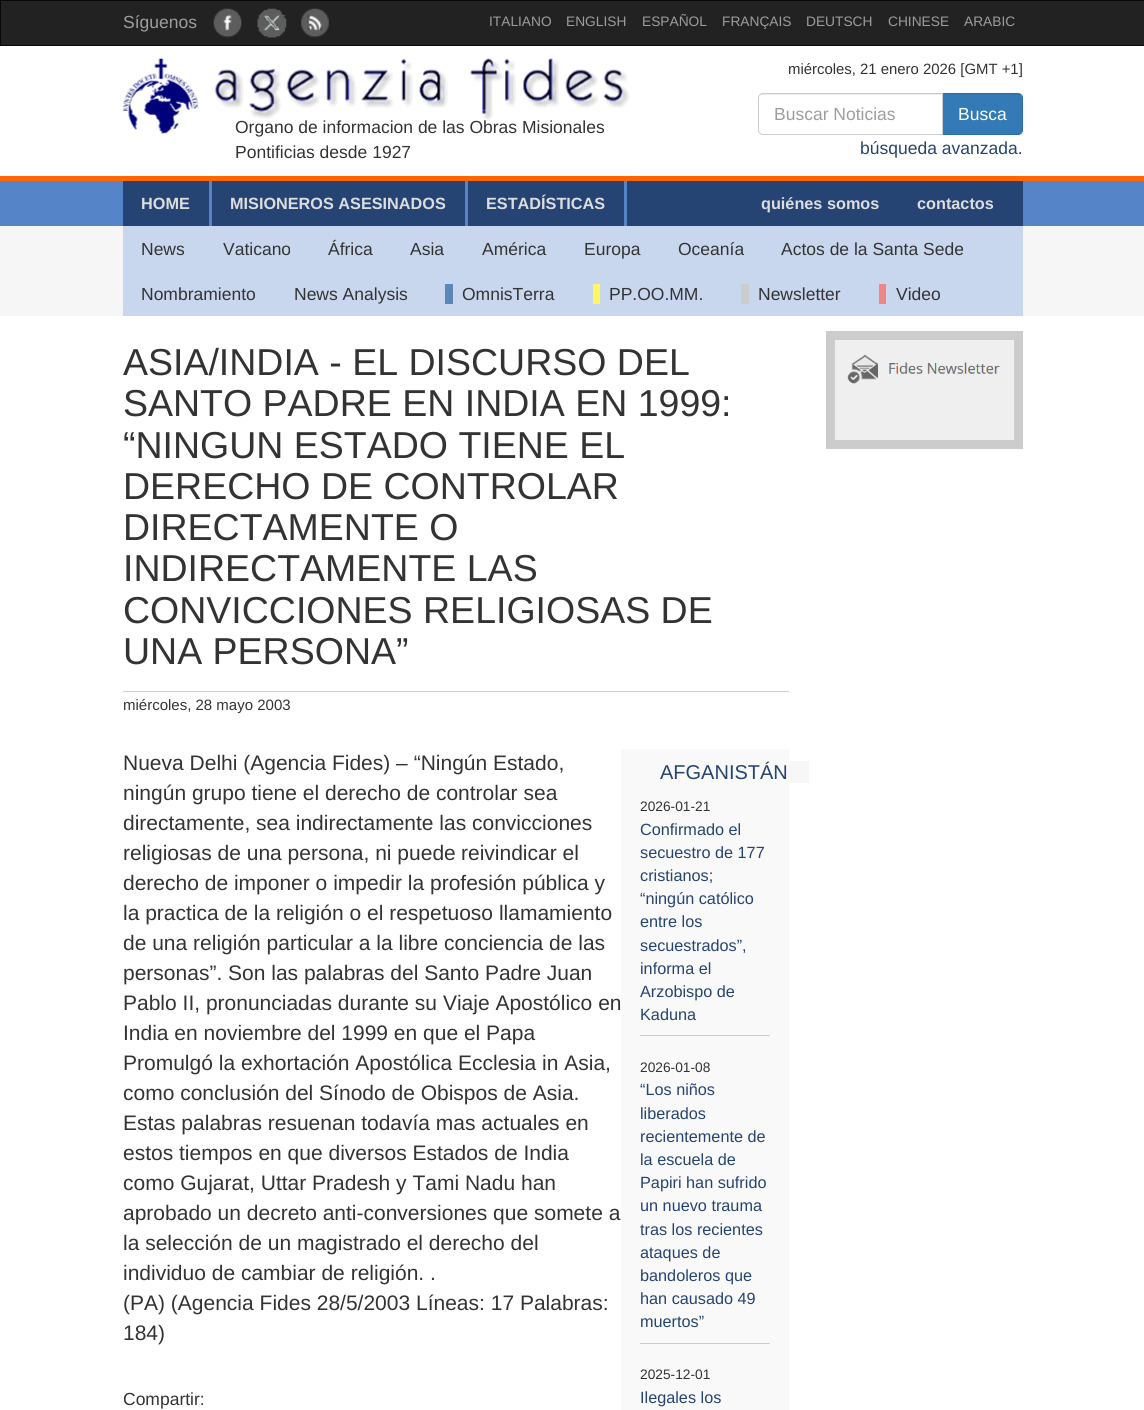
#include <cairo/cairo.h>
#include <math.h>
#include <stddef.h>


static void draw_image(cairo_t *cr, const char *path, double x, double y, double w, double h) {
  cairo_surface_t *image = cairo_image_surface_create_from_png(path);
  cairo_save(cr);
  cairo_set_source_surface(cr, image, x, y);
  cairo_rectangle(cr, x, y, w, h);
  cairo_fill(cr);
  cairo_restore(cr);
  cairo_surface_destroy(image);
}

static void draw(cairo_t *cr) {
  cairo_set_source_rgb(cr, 1, 1, 1);
  cairo_paint(cr);
  cairo_set_source_rgb(cr, 34 / 255.0, 34 / 255.0, 34 / 255.0);
  cairo_rectangle(cr, 0.5, 0.5, 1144, 45);
  cairo_fill_preserve(cr);
  cairo_set_source_rgb(cr, 8 / 255.0, 8 / 255.0, 8 / 255.0);
  cairo_set_line_width(cr, 1);
  cairo_stroke(cr);
  draw_image(cr, "images/1.png", 213, 8, 29, 30);
  draw_image(cr, "images/2.png", 257, 8, 30, 30);
  draw_image(cr, "images/3.png", 301, 8, 28, 30);
  cairo_set_source_rgb(cr, 1, 102 / 255.0, 0);
  cairo_rectangle(cr, 0, 176, 1144, 5);
  cairo_fill(cr);
  draw_image(cr, "images/4.png", 122, 58, 508, 76);
  cairo_set_source_rgb(cr, 51 / 255.0, 122 / 255.0, 183 / 255.0);
  cairo_new_path(cr);
  cairo_move_to(cr, 941.5, 93.5);
  cairo_line_to(cr, 1018, 93.5);
  cairo_curve_to(cr, 1020.5, 93.5, 1022.5, 95.5, 1022.5, 98);
  cairo_line_to(cr, 1022.5, 130);
  cairo_curve_to(cr, 1022.5, 132.5, 1020.5, 134.5, 1018, 134.5);
  cairo_line_to(cr, 941.5, 134.5);
  cairo_close_path(cr);
  cairo_fill_preserve(cr);
  cairo_set_source_rgb(cr, 46 / 255.0, 109 / 255.0, 164 / 255.0);
  cairo_stroke(cr);
  cairo_set_source_rgb(cr, 1, 1, 1);
  cairo_new_path(cr);
  cairo_move_to(cr, 763, 93);
  cairo_line_to(cr, 943, 93);
  cairo_line_to(cr, 943, 135);
  cairo_line_to(cr, 763, 135);
  cairo_curve_to(cr, 760, 135, 758, 133, 758, 130);
  cairo_line_to(cr, 758, 98);
  cairo_curve_to(cr, 758, 95, 760, 93, 763, 93);
  cairo_close_path(cr);
  cairo_fill(cr);
  cairo_set_source_rgb(cr, 236 / 255.0, 236 / 255.0, 236 / 255.0);
  cairo_new_path(cr);
  cairo_move_to(cr, 762, 95);
  cairo_line_to(cr, 941, 95);
  cairo_line_to(cr, 941, 94);
  cairo_line_to(cr, 762, 94);
  cairo_curve_to(cr, 760, 95, 759, 97, 759, 99);
  cairo_curve_to(cr, 759, 97, 760, 95, 762, 95);
  cairo_close_path(cr);
  cairo_fill(cr);
  cairo_new_path(cr);
  cairo_move_to(cr, 763, 93.5);
  cairo_line_to(cr, 942.5, 93.5);
  cairo_line_to(cr, 942.5, 134.5);
  cairo_line_to(cr, 763, 134.5);
  cairo_curve_to(cr, 760.5, 134.5, 758.5, 132.5, 758.5, 130);
  cairo_line_to(cr, 758.5, 98);
  cairo_curve_to(cr, 758.5, 95.5, 760.5, 93.5, 763, 93.5);
  cairo_close_path(cr);
  cairo_set_source_rgb(cr, 204 / 255.0, 204 / 255.0, 204 / 255.0);
  cairo_stroke(cr);
  cairo_set_source_rgb(cr, 246 / 255.0, 246 / 255.0, 246 / 255.0);
  cairo_rectangle(cr, 0, 226, 1144, 90);
  cairo_fill(cr);
  cairo_set_source_rgb(cr, 86 / 255.0, 132 / 255.0, 201 / 255.0);
  cairo_rectangle(cr, 0, 181, 1144, 45);
  cairo_fill(cr);
  cairo_set_source_rgb(cr, 37 / 255.0, 68 / 255.0, 115 / 255.0);
  cairo_rectangle(cr, 123, 181, 900, 45);
  cairo_fill(cr);
  cairo_set_source_rgb(cr, 86 / 255.0, 132 / 255.0, 201 / 255.0);
  cairo_rectangle(cr, 209, 181, 3, 45);
  cairo_fill(cr);
  cairo_rectangle(cr, 465, 181, 3, 45);
  cairo_fill(cr);
  cairo_rectangle(cr, 624, 181, 3, 45);
  cairo_fill(cr);
  cairo_set_source_rgb(cr, 200 / 255.0, 215 / 255.0, 238 / 255.0);
  cairo_rectangle(cr, 123, 226, 900, 90);
  cairo_fill(cr);
  cairo_set_source_rgb(cr, 92 / 255.0, 136 / 255.0, 181 / 255.0);
  cairo_rectangle(cr, 445, 284, 8, 20);
  cairo_fill(cr);
  cairo_set_source_rgb(cr, 253 / 255.0, 247 / 255.0, 96 / 255.0);
  cairo_rectangle(cr, 593, 284, 7, 20);
  cairo_fill(cr);
  cairo_set_source_rgb(cr, 204 / 255.0, 204 / 255.0, 204 / 255.0);
  cairo_rectangle(cr, 741, 284, 8, 20);
  cairo_fill(cr);
  cairo_set_source_rgb(cr, 241 / 255.0, 133 / 255.0, 133 / 255.0);
  cairo_rectangle(cr, 879, 284, 7, 20);
  cairo_fill(cr);
  cairo_set_source_rgb(cr, 204 / 255.0, 204 / 255.0, 204 / 255.0);
  cairo_rectangle(cr, 123, 691, 666, 1);
  cairo_fill(cr);
  cairo_set_source_rgb(cr, 249 / 255.0, 249 / 255.0, 249 / 255.0);
  cairo_rectangle(cr, 621, 749, 168, 661);
  cairo_fill(cr);
  cairo_set_source_rgb(cr, 247 / 255.0, 247 / 255.0, 247 / 255.0);
  cairo_rectangle(cr, 789, 761, 20, 22);
  cairo_fill(cr);
  cairo_set_source_rgb(cr, 204 / 255.0, 204 / 255.0, 204 / 255.0);
  cairo_rectangle(cr, 640, 1035, 130, 1);
  cairo_fill(cr);
  cairo_rectangle(cr, 640, 1343, 130, 1);
  cairo_fill(cr);
  cairo_set_source_rgb(cr, 239 / 255.0, 239 / 255.0, 239 / 255.0);
  cairo_rectangle(cr, 830.5, 335.5, 188, 109);
  cairo_fill_preserve(cr);
  cairo_set_source_rgb(cr, 204 / 255.0, 204 / 255.0, 204 / 255.0);
  cairo_set_line_width(cr, 9);
  cairo_stroke(cr);
  draw_image(cr, "images/5.png", 847, 354, 153, 30);
  cairo_select_font_face(cr, "Liberation Sans", CAIRO_FONT_SLANT_NORMAL, CAIRO_FONT_WEIGHT_NORMAL);
  cairo_set_font_size(cr, 17.5);
  cairo_set_source_rgb(cr, 157 / 255.0, 157 / 255.0, 157 / 255.0);
  cairo_move_to(cr, 123, 28);
  cairo_show_text(cr, "Síguenos");
  cairo_set_font_size(cr, 13.75);
  cairo_move_to(cr, 489, 26);
  cairo_show_text(cr, "ITALIANO");
  cairo_move_to(cr, 566, 26);
  cairo_show_text(cr, "ENGLISH");
  cairo_move_to(cr, 642, 26);
  cairo_show_text(cr, "ESPAÑOL");
  cairo_move_to(cr, 722, 26);
  cairo_show_text(cr, "FRANÇAIS");
  cairo_move_to(cr, 806, 26);
  cairo_show_text(cr, "DEUTSCH");
  cairo_move_to(cr, 888, 26);
  cairo_show_text(cr, "CHINESE");
  cairo_move_to(cr, 964, 26);
  cairo_show_text(cr, "ARABIC");
  cairo_set_font_size(cr, 17.5);
  cairo_set_source_rgb(cr, 51 / 255.0, 51 / 255.0, 51 / 255.0);
  cairo_move_to(cr, 235, 133);
  cairo_show_text(cr, "Organo de informacion de las Obras Misionales");
  cairo_move_to(cr, 235, 158);
  cairo_show_text(cr, "Pontificias desde 1927");
  cairo_set_font_size(cr, 14.9);
  cairo_move_to(cr, 788, 74);
  cairo_show_text(cr, "miércoles, 21 enero 2026 [GMT +1]");
  cairo_set_font_size(cr, 17.5);
  cairo_set_source_rgb(cr, 157 / 255.0, 157 / 255.0, 157 / 255.0);
  cairo_move_to(cr, 774, 120);
  cairo_show_text(cr, "Buscar Noticias");
  cairo_set_source_rgb(cr, 1, 1, 1);
  cairo_move_to(cr, 958, 120);
  cairo_show_text(cr, "Busca");
  cairo_set_source_rgb(cr, 37 / 255.0, 68 / 255.0, 114 / 255.0);
  cairo_move_to(cr, 860, 154);
  cairo_show_text(cr, "búsqueda avanzada.");
  cairo_select_font_face(cr, "Liberation Sans", CAIRO_FONT_SLANT_NORMAL, CAIRO_FONT_WEIGHT_BOLD);
  cairo_set_font_size(cr, 16.25);
  cairo_set_source_rgb(cr, 221 / 255.0, 221 / 255.0, 221 / 255.0);
  cairo_move_to(cr, 141, 209);
  cairo_show_text(cr, "HOME");
  cairo_move_to(cr, 230, 209);
  cairo_show_text(cr, "MISIONEROS ASESINADOS");
  cairo_move_to(cr, 486, 209);
  cairo_show_text(cr, "ESTADÍSTICAS");
  cairo_move_to(cr, 761, 209);
  cairo_show_text(cr, "quiénes somos");
  cairo_move_to(cr, 917, 209);
  cairo_show_text(cr, "contactos");
  cairo_select_font_face(cr, "Liberation Sans", CAIRO_FONT_SLANT_NORMAL, CAIRO_FONT_WEIGHT_NORMAL);
  cairo_set_font_size(cr, 17.5);
  cairo_set_source_rgb(cr, 51 / 255.0, 51 / 255.0, 51 / 255.0);
  cairo_move_to(cr, 141, 255);
  cairo_show_text(cr, "News");
  cairo_move_to(cr, 223, 255);
  cairo_show_text(cr, "Vaticano");
  cairo_move_to(cr, 328, 255);
  cairo_show_text(cr, "África");
  cairo_move_to(cr, 410, 255);
  cairo_show_text(cr, "Asia");
  cairo_move_to(cr, 482, 255);
  cairo_show_text(cr, "América");
  cairo_move_to(cr, 584, 255);
  cairo_show_text(cr, "Europa");
  cairo_move_to(cr, 678, 255);
  cairo_show_text(cr, "Oceanía");
  cairo_move_to(cr, 781, 255);
  cairo_show_text(cr, "Actos de la Santa Sede");
  cairo_move_to(cr, 141, 300);
  cairo_show_text(cr, "Nombramiento");
  cairo_move_to(cr, 294, 300);
  cairo_show_text(cr, "News Analysis");
  cairo_move_to(cr, 462, 300);
  cairo_show_text(cr, "OmnisTerra");
  cairo_move_to(cr, 609, 300);
  cairo_show_text(cr, "PP.OO.MM.");
  cairo_move_to(cr, 758, 300);
  cairo_show_text(cr, "Newsletter");
  cairo_move_to(cr, 896, 300);
  cairo_show_text(cr, "Video");
  cairo_set_font_size(cr, 37.5);
  cairo_move_to(cr, 123, 375);
  cairo_show_text(cr, "ASIA/INDIA - EL DISCURSO DEL");
  cairo_move_to(cr, 123, 416);
  cairo_show_text(cr, "SANTO PADRE EN INDIA EN 1999:");
  cairo_move_to(cr, 123, 458);
  cairo_show_text(cr, "“NINGUN ESTADO TIENE EL");
  cairo_move_to(cr, 123, 499);
  cairo_show_text(cr, "DERECHO DE CONTROLAR");
  cairo_move_to(cr, 123, 540);
  cairo_show_text(cr, "DIRECTAMENTE O");
  cairo_move_to(cr, 123, 581);
  cairo_show_text(cr, "INDIRECTAMENTE LAS");
  cairo_move_to(cr, 123, 623);
  cairo_show_text(cr, "CONVICCIONES RELIGIOSAS DE");
  cairo_move_to(cr, 123, 664);
  cairo_show_text(cr, "UNA PERSONA”");
  cairo_set_font_size(cr, 15);
  cairo_move_to(cr, 123, 710);
  cairo_show_text(cr, "miércoles, 28 mayo 2003");
  cairo_set_font_size(cr, 21);
  cairo_move_to(cr, 123, 770);
  cairo_show_text(cr, "Nueva Delhi (Agencia Fides) – “Ningún Estado,");
  cairo_move_to(cr, 123, 800);
  cairo_show_text(cr, "ningún grupo tiene el derecho de controlar sea");
  cairo_move_to(cr, 123, 830);
  cairo_show_text(cr, "directamente, sea indirectamente las convicciones");
  cairo_move_to(cr, 123, 860);
  cairo_show_text(cr, "religiosas de una persona, ni puede");
  cairo_move_to(cr, 461, 860);
  cairo_show_text(cr, "reivindicar el");
  cairo_move_to(cr, 123, 890);
  cairo_show_text(cr, "derecho de imponer o impedir la profesión pública y");
  cairo_move_to(cr, 123, 920);
  cairo_show_text(cr, "la practica de la religión o el respetuoso llamamiento");
  cairo_move_to(cr, 123, 950);
  cairo_show_text(cr, "de una religión particular a la libre conciencia de las");
  cairo_move_to(cr, 123, 980);
  cairo_show_text(cr, "personas”. Son las palabras del Santo Padre Juan");
  cairo_move_to(cr, 123, 1010);
  cairo_show_text(cr, "Pablo II, pronunciadas durante su Viaje Apostólico en");
  cairo_move_to(cr, 123, 1040);
  cairo_show_text(cr, "India en noviembre del 1999 en que el Papa");
  cairo_move_to(cr, 123, 1070);
  cairo_show_text(cr, "Promulgó la exhortación Apostólica Ecclesia in Asia,");
  cairo_move_to(cr, 123, 1100);
  cairo_show_text(cr, "como conclusión del Sínodo de Obispos de Asia.");
  cairo_move_to(cr, 123, 1130);
  cairo_show_text(cr, "Estas palabras resuenan todavía mas actuales en");
  cairo_move_to(cr, 123, 1160);
  cairo_show_text(cr, "estos tiempos en que diversos Estados de India");
  cairo_move_to(cr, 123, 1190);
  cairo_show_text(cr, "como Gujarat, Uttar Pradesh y Tami Nadu han");
  cairo_move_to(cr, 123, 1220);
  cairo_show_text(cr, "aprobado un decreto anti-conversiones que somete a");
  cairo_move_to(cr, 123, 1250);
  cairo_show_text(cr, "la selección de un magistrado el derecho del");
  cairo_move_to(cr, 123, 1280);
  cairo_show_text(cr, "individuo de cambiar de religión. .");
  cairo_move_to(cr, 123, 1310);
  cairo_show_text(cr, "(PA) (Agencia Fides 28/5/2003 Líneas: 17 Palabras:");
  cairo_move_to(cr, 123, 1340);
  cairo_show_text(cr, "184)");
  cairo_set_font_size(cr, 20);
  cairo_set_source_rgb(cr, 37 / 255.0, 68 / 255.0, 114 / 255.0);
  cairo_move_to(cr, 660, 779);
  cairo_show_text(cr, "AFGANISTÁN");
  cairo_set_font_size(cr, 13.75);
  cairo_set_source_rgb(cr, 51 / 255.0, 51 / 255.0, 51 / 255.0);
  cairo_move_to(cr, 640, 811);
  cairo_show_text(cr, "2026-01-21");
  cairo_set_font_size(cr, 16.25);
  cairo_set_source_rgb(cr, 37 / 255.0, 68 / 255.0, 114 / 255.0);
  cairo_move_to(cr, 640, 835);
  cairo_show_text(cr, "Confirmado el");
  cairo_move_to(cr, 640, 858);
  cairo_show_text(cr, "secuestro de 177");
  cairo_move_to(cr, 640, 881);
  cairo_show_text(cr, "cristianos;");
  cairo_move_to(cr, 640, 904);
  cairo_show_text(cr, "“ningún católico");
  cairo_move_to(cr, 640, 927);
  cairo_show_text(cr, "entre los");
  cairo_move_to(cr, 640, 951);
  cairo_show_text(cr, "secuestrados”,");
  cairo_move_to(cr, 640, 974);
  cairo_show_text(cr, "informa el");
  cairo_move_to(cr, 640, 997);
  cairo_show_text(cr, "Arzobispo de");
  cairo_move_to(cr, 640, 1020);
  cairo_show_text(cr, "Kaduna");
  cairo_set_font_size(cr, 13.75);
  cairo_set_source_rgb(cr, 51 / 255.0, 51 / 255.0, 51 / 255.0);
  cairo_move_to(cr, 640, 1072);
  cairo_show_text(cr, "2026-01-08");
  cairo_set_font_size(cr, 16.25);
  cairo_set_source_rgb(cr, 37 / 255.0, 68 / 255.0, 114 / 255.0);
  cairo_move_to(cr, 640, 1095);
  cairo_show_text(cr, "“Los niños");
  cairo_move_to(cr, 640, 1119);
  cairo_show_text(cr, "liberados");
  cairo_move_to(cr, 640, 1142);
  cairo_show_text(cr, "recientemente de");
  cairo_move_to(cr, 640, 1165);
  cairo_show_text(cr, "la escuela de");
  cairo_move_to(cr, 640, 1188);
  cairo_show_text(cr, "Papiri han sufrido");
  cairo_move_to(cr, 640, 1211);
  cairo_show_text(cr, "un nuevo trauma");
  cairo_move_to(cr, 640, 1235);
  cairo_show_text(cr, "tras los recientes");
  cairo_move_to(cr, 640, 1258);
  cairo_show_text(cr, "ataques de");
  cairo_move_to(cr, 640, 1281);
  cairo_show_text(cr, "bandoleros que");
  cairo_move_to(cr, 640, 1304);
  cairo_show_text(cr, "han causado 49");
  cairo_move_to(cr, 640, 1327);
  cairo_show_text(cr, "muertos”");
  cairo_set_font_size(cr, 13.75);
  cairo_set_source_rgb(cr, 51 / 255.0, 51 / 255.0, 51 / 255.0);
  cairo_move_to(cr, 640, 1379);
  cairo_show_text(cr, "2025-12-01");
  cairo_set_font_size(cr, 16.25);
  cairo_set_source_rgb(cr, 37 / 255.0, 68 / 255.0, 114 / 255.0);
  cairo_move_to(cr, 640, 1403);
  cairo_show_text(cr, "Ilegales los");
  cairo_set_font_size(cr, 17.5);
  cairo_set_source_rgb(cr, 51 / 255.0, 51 / 255.0, 51 / 255.0);
  cairo_move_to(cr, 123, 1405);
  cairo_show_text(cr, "Compartir:");
}

int main(void) {
  cairo_surface_t *surface = cairo_image_surface_create(CAIRO_FORMAT_RGB24, 1144, 1410);
  cairo_t *cr = cairo_create(surface);
  cairo_font_options_t *options = cairo_font_options_create();
  cairo_font_options_set_hint_metrics(options, CAIRO_HINT_METRICS_OFF);
  cairo_font_options_set_hint_style(options, CAIRO_HINT_STYLE_NONE);
  cairo_set_font_options(cr, options);
  cairo_set_miter_limit(cr, 4);
  draw(cr);
  cairo_surface_write_to_png(surface, "out.png");
  cairo_font_options_destroy(options);
  cairo_destroy(cr);
  cairo_surface_destroy(surface);
  return 0;
}
